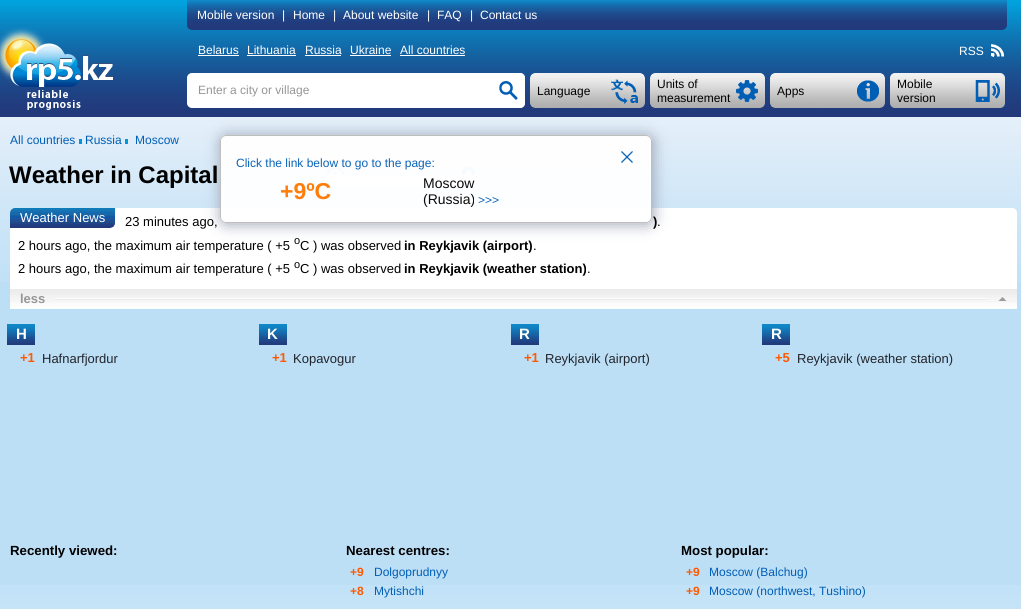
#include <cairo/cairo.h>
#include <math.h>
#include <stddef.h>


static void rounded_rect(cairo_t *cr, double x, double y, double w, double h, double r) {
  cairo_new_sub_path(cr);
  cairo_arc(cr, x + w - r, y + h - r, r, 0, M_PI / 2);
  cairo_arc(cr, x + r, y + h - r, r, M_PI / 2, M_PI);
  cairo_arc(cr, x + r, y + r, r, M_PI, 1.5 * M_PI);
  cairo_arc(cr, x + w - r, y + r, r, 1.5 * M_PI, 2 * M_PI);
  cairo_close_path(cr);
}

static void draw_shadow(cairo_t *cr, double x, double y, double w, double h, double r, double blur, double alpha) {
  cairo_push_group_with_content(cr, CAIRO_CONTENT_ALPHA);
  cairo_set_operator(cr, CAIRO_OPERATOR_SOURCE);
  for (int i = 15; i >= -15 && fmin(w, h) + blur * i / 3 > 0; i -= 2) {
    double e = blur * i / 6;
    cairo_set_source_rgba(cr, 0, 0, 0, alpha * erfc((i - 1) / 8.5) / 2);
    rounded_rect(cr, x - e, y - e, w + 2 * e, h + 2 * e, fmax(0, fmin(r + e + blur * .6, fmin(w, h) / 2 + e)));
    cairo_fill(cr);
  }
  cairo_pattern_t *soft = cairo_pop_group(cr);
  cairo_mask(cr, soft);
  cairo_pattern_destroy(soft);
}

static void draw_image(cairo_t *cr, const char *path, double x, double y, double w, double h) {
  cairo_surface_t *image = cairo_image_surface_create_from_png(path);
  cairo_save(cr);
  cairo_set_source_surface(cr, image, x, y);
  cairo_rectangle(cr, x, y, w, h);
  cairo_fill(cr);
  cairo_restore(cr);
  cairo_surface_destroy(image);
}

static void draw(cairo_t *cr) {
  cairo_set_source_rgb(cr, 189 / 255.0, 223 / 255.0, 246 / 255.0);
  cairo_paint(cr);
  draw_image(cr, "images/1.png", 0, 123, 1021, 159);
  draw_image(cr, "images/2.png", 0, 0, 1021, 123);
  draw_image(cr, "images/3.png", 187, 0, 820, 30);
  draw_image(cr, "images/4.png", 0, 27, 113, 83);
  cairo_set_source_rgb(cr, 1, 1, 1);
  cairo_rectangle(cr, 198, 55, 41, 1);
  cairo_fill(cr);
  cairo_rectangle(cr, 247, 55, 49, 1);
  cairo_fill(cr);
  cairo_rectangle(cr, 305, 55, 36, 1);
  cairo_fill(cr);
  cairo_rectangle(cr, 350, 55, 41, 1);
  cairo_fill(cr);
  cairo_rectangle(cr, 400, 55, 65, 1);
  cairo_fill(cr);
  draw_image(cr, "images/5.png", 991, 44, 13, 13);
  rounded_rect(cr, 187, 73, 338, 35, 5);
  cairo_fill(cr);
  draw_image(cr, "images/6.png", 499, 73, 26, 35);
  draw_image(cr, "images/7.png", 530, 73, 115, 35);
  draw_image(cr, "images/8.png", 650, 73, 115, 35);
  draw_image(cr, "images/9.png", 770, 73, 115, 35);
  draw_image(cr, "images/10.png", 890, 73, 115, 35);
  cairo_set_source_rgb(cr, 0, 150 / 255.0, 222 / 255.0);
  cairo_rectangle(cr, 79, 139, 3, 5);
  cairo_fill(cr);
  cairo_rectangle(cr, 125, 139, 3, 5);
  cairo_fill(cr);
  draw_image(cr, "images/11.png", 326, 167, 19, 19);
  draw_image(cr, "images/12.png", 462, 167, 13, 18);
  cairo_set_source_rgb(cr, 1, 1, 1);
  cairo_new_path(cr);
  cairo_move_to(cr, 15, 208);
  cairo_line_to(cr, 1012, 208);
  cairo_curve_to(cr, 1015, 208, 1017, 210, 1017, 213);
  cairo_line_to(cr, 1017, 289);
  cairo_line_to(cr, 10, 289);
  cairo_line_to(cr, 10, 213);
  cairo_curve_to(cr, 10, 210, 12, 208, 15, 208);
  cairo_close_path(cr);
  cairo_fill(cr);
  draw_image(cr, "images/13.png", 10, 208, 105, 20);
  draw_image(cr, "images/14.png", 10, 289, 1007, 20);
  cairo_set_source_rgb(cr, 244 / 255.0, 244 / 255.0, 244 / 255.0);
  cairo_rectangle(cr, 10, 298, 45, 2);
  cairo_fill(cr);
  draw_image(cr, "images/15.png", 987, 297, 30, 4);
  draw_image(cr, "images/16.png", 7, 324, 28, 21);
  draw_image(cr, "images/16.png", 259, 324, 28, 21);
  draw_image(cr, "images/16.png", 511, 324, 28, 21);
  draw_image(cr, "images/16.png", 762, 324, 28, 21);
  cairo_save(cr);
  cairo_set_fill_rule(cr, CAIRO_FILL_RULE_EVEN_ODD);
  cairo_new_path(cr);
  cairo_move_to(cr, 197, 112);
  cairo_line_to(cr, 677, 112);
  cairo_line_to(cr, 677, 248);
  cairo_line_to(cr, 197, 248);
  cairo_close_path(cr);
  cairo_move_to(cr, 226, 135);
  cairo_line_to(cr, 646, 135);
  cairo_curve_to(cr, 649.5, 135, 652, 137.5, 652, 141);
  cairo_line_to(cr, 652, 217);
  cairo_curve_to(cr, 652, 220.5, 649.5, 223, 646, 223);
  cairo_line_to(cr, 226, 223);
  cairo_curve_to(cr, 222.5, 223, 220, 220.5, 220, 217);
  cairo_line_to(cr, 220, 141);
  cairo_curve_to(cr, 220, 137.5, 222.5, 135, 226, 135);
  cairo_close_path(cr);
  cairo_clip(cr);
  cairo_set_source_rgb(cr, 150 / 255.0, 156 / 255.0, 175 / 255.0);
  draw_shadow(cr, 221, 136, 432, 88, 6, 7.5, 0.96);
  cairo_restore(cr);
  cairo_set_source_rgba(cr, 1, 1, 1, 0.96);
  rounded_rect(cr, 220, 135, 432, 88, 6);
  cairo_fill(cr);
  rounded_rect(cr, 220.5, 135.5, 431, 87, 5.5);
  cairo_set_source_rgba(cr, 187 / 255.0, 187 / 255.0, 187 / 255.0, 0.96);
  cairo_set_line_width(cr, 1);
  cairo_stroke(cr);
  draw_image(cr, "images/17.png", 621, 151, 12, 12);
  cairo_set_source_rgba(cr, 1, 1, 1, 0.96);
  cairo_rectangle(cr, 326, 175, 149, 11);
  cairo_fill(cr);
  draw_image(cr, "images/18.png", 0, 585, 1021, 24);
  cairo_select_font_face(cr, "Liberation Sans", CAIRO_FONT_SLANT_NORMAL, CAIRO_FONT_WEIGHT_NORMAL);
  cairo_set_font_size(cr, 12);
  cairo_set_source_rgb(cr, 1, 1, 1);
  cairo_move_to(cr, 197, 19);
  cairo_show_text(cr, "Mobile version");
  cairo_move_to(cr, 282, 19);
  cairo_show_text(cr, "|");
  cairo_move_to(cr, 293, 19);
  cairo_show_text(cr, "Home");
  cairo_move_to(cr, 333, 19);
  cairo_show_text(cr, "|");
  cairo_move_to(cr, 343, 19);
  cairo_show_text(cr, "About website");
  cairo_move_to(cr, 427, 19);
  cairo_show_text(cr, "|");
  cairo_move_to(cr, 437, 19);
  cairo_show_text(cr, "FAQ");
  cairo_move_to(cr, 470, 19);
  cairo_show_text(cr, "|");
  cairo_move_to(cr, 480, 19);
  cairo_show_text(cr, "Contact us");
  cairo_move_to(cr, 198, 54);
  cairo_show_text(cr, "Belarus");
  cairo_move_to(cr, 247, 54);
  cairo_show_text(cr, "Lithuania");
  cairo_move_to(cr, 305, 54);
  cairo_show_text(cr, "Russia");
  cairo_move_to(cr, 350, 54);
  cairo_show_text(cr, "Ukraine");
  cairo_move_to(cr, 400, 54);
  cairo_show_text(cr, "All countries");
  cairo_move_to(cr, 959, 55);
  cairo_show_text(cr, "RSS");
  cairo_set_source_rgb(cr, 150 / 255.0, 150 / 255.0, 150 / 255.0);
  cairo_move_to(cr, 198, 94);
  cairo_show_text(cr, "Enter a city or village");
  cairo_set_source_rgb(cr, 0, 0, 0);
  cairo_move_to(cr, 537, 95);
  cairo_show_text(cr, "Language");
  cairo_move_to(cr, 657, 88);
  cairo_show_text(cr, "Units of");
  cairo_move_to(cr, 657, 102);
  cairo_show_text(cr, "measurement");
  cairo_move_to(cr, 777, 95);
  cairo_show_text(cr, "Apps");
  cairo_move_to(cr, 897, 88);
  cairo_show_text(cr, "Mobile");
  cairo_move_to(cr, 897, 102);
  cairo_show_text(cr, "version");
  cairo_set_source_rgb(cr, 0, 94 / 255.0, 181 / 255.0);
  cairo_move_to(cr, 10, 144);
  cairo_show_text(cr, "All countries");
  cairo_move_to(cr, 85, 144);
  cairo_show_text(cr, "Russia");
  cairo_move_to(cr, 135, 144);
  cairo_show_text(cr, "Moscow");
  cairo_select_font_face(cr, "Liberation Sans", CAIRO_FONT_SLANT_NORMAL, CAIRO_FONT_WEIGHT_BOLD);
  cairo_set_font_size(cr, 24);
  cairo_set_source_rgb(cr, 0, 0, 0);
  cairo_move_to(cr, 9, 183);
  cairo_show_text(cr, "Weather in Capital");
  cairo_select_font_face(cr, "Liberation Sans", CAIRO_FONT_SLANT_NORMAL, CAIRO_FONT_WEIGHT_NORMAL);
  cairo_set_font_size(cr, 13);
  cairo_set_source_rgb(cr, 1, 1, 1);
  cairo_move_to(cr, 20, 222);
  cairo_show_text(cr, "Weather News");
  cairo_set_source_rgb(cr, 0, 0, 0);
  cairo_move_to(cr, 125, 226);
  cairo_show_text(cr, "23 minutes ago,");
  cairo_select_font_face(cr, "Liberation Sans", CAIRO_FONT_SLANT_NORMAL, CAIRO_FONT_WEIGHT_BOLD);
  cairo_move_to(cr, 653, 226);
  cairo_show_text(cr, ")");
  cairo_select_font_face(cr, "Liberation Sans", CAIRO_FONT_SLANT_NORMAL, CAIRO_FONT_WEIGHT_NORMAL);
  cairo_move_to(cr, 657, 226);
  cairo_show_text(cr, ".");
  cairo_move_to(cr, 18, 250);
  cairo_show_text(cr, "2 hours ago, the maximum air temperature ( +5");
  cairo_set_font_size(cr, 11);
  cairo_move_to(cr, 294, 244);
  cairo_show_text(cr, "o");
  cairo_set_font_size(cr, 13);
  cairo_move_to(cr, 300, 250);
  cairo_show_text(cr, "C ) was observed");
  cairo_select_font_face(cr, "Liberation Sans", CAIRO_FONT_SLANT_NORMAL, CAIRO_FONT_WEIGHT_BOLD);
  cairo_move_to(cr, 404, 250);
  cairo_show_text(cr, "in Reykjavik (airport)");
  cairo_select_font_face(cr, "Liberation Sans", CAIRO_FONT_SLANT_NORMAL, CAIRO_FONT_WEIGHT_NORMAL);
  cairo_move_to(cr, 533, 250);
  cairo_show_text(cr, ".");
  cairo_move_to(cr, 18, 273);
  cairo_show_text(cr, "2 hours ago, the maximum air temperature ( +5");
  cairo_set_font_size(cr, 11);
  cairo_move_to(cr, 294, 268);
  cairo_show_text(cr, "o");
  cairo_set_font_size(cr, 13);
  cairo_move_to(cr, 300, 273);
  cairo_show_text(cr, "C ) was observed");
  cairo_select_font_face(cr, "Liberation Sans", CAIRO_FONT_SLANT_NORMAL, CAIRO_FONT_WEIGHT_BOLD);
  cairo_move_to(cr, 404, 273);
  cairo_show_text(cr, "in Reykjavik (weather station)");
  cairo_select_font_face(cr, "Liberation Sans", CAIRO_FONT_SLANT_NORMAL, CAIRO_FONT_WEIGHT_NORMAL);
  cairo_move_to(cr, 587, 273);
  cairo_show_text(cr, ".");
  cairo_select_font_face(cr, "Liberation Sans", CAIRO_FONT_SLANT_NORMAL, CAIRO_FONT_WEIGHT_BOLD);
  cairo_set_source_rgb(cr, 150 / 255.0, 150 / 255.0, 150 / 255.0);
  cairo_move_to(cr, 20, 303);
  cairo_show_text(cr, "less");
  cairo_set_font_size(cr, 15);
  cairo_set_source_rgb(cr, 1, 1, 1);
  cairo_move_to(cr, 16, 339);
  cairo_show_text(cr, "H");
  cairo_set_font_size(cr, 13);
  cairo_set_source_rgb(cr, 1, 89 / 255.0, 0);
  cairo_move_to(cr, 20, 362);
  cairo_show_text(cr, "+1");
  cairo_select_font_face(cr, "Liberation Sans", CAIRO_FONT_SLANT_NORMAL, CAIRO_FONT_WEIGHT_NORMAL);
  cairo_set_source_rgb(cr, 33 / 255.0, 36 / 255.0, 43 / 255.0);
  cairo_move_to(cr, 42, 363);
  cairo_show_text(cr, "Hafnarfjordur");
  cairo_select_font_face(cr, "Liberation Sans", CAIRO_FONT_SLANT_NORMAL, CAIRO_FONT_WEIGHT_BOLD);
  cairo_set_font_size(cr, 15);
  cairo_set_source_rgb(cr, 1, 1, 1);
  cairo_move_to(cr, 267, 339);
  cairo_show_text(cr, "K");
  cairo_set_font_size(cr, 13);
  cairo_set_source_rgb(cr, 1, 89 / 255.0, 0);
  cairo_move_to(cr, 272, 362);
  cairo_show_text(cr, "+1");
  cairo_select_font_face(cr, "Liberation Sans", CAIRO_FONT_SLANT_NORMAL, CAIRO_FONT_WEIGHT_NORMAL);
  cairo_set_source_rgb(cr, 33 / 255.0, 36 / 255.0, 43 / 255.0);
  cairo_move_to(cr, 293, 363);
  cairo_show_text(cr, "Kopavogur");
  cairo_select_font_face(cr, "Liberation Sans", CAIRO_FONT_SLANT_NORMAL, CAIRO_FONT_WEIGHT_BOLD);
  cairo_set_font_size(cr, 15);
  cairo_set_source_rgb(cr, 1, 1, 1);
  cairo_move_to(cr, 519, 339);
  cairo_show_text(cr, "R");
  cairo_set_font_size(cr, 13);
  cairo_set_source_rgb(cr, 1, 89 / 255.0, 0);
  cairo_move_to(cr, 524, 362);
  cairo_show_text(cr, "+1");
  cairo_select_font_face(cr, "Liberation Sans", CAIRO_FONT_SLANT_NORMAL, CAIRO_FONT_WEIGHT_NORMAL);
  cairo_set_source_rgb(cr, 33 / 255.0, 36 / 255.0, 43 / 255.0);
  cairo_move_to(cr, 545, 363);
  cairo_show_text(cr, "Reykjavik (airport)");
  cairo_select_font_face(cr, "Liberation Sans", CAIRO_FONT_SLANT_NORMAL, CAIRO_FONT_WEIGHT_BOLD);
  cairo_set_font_size(cr, 15);
  cairo_set_source_rgb(cr, 1, 1, 1);
  cairo_move_to(cr, 771, 339);
  cairo_show_text(cr, "R");
  cairo_set_font_size(cr, 13);
  cairo_set_source_rgb(cr, 1, 89 / 255.0, 0);
  cairo_move_to(cr, 775, 362);
  cairo_show_text(cr, "+5");
  cairo_select_font_face(cr, "Liberation Sans", CAIRO_FONT_SLANT_NORMAL, CAIRO_FONT_WEIGHT_NORMAL);
  cairo_set_source_rgb(cr, 33 / 255.0, 36 / 255.0, 43 / 255.0);
  cairo_move_to(cr, 797, 363);
  cairo_show_text(cr, "Reykjavik (weather station)");
  cairo_set_font_size(cr, 12);
  cairo_set_source_rgb(cr, 10 / 255.0, 100 / 255.0, 184 / 255.0);
  cairo_move_to(cr, 236, 167);
  cairo_show_text(cr, "Click the link below to go to the page:");
  cairo_select_font_face(cr, "Liberation Sans", CAIRO_FONT_SLANT_NORMAL, CAIRO_FONT_WEIGHT_BOLD);
  cairo_set_font_size(cr, 23);
  cairo_set_source_rgb(cr, 1, 125 / 255.0, 10 / 255.0);
  cairo_move_to(cr, 280, 199);
  cairo_show_text(cr, "+9ºC");
  cairo_select_font_face(cr, "Liberation Sans", CAIRO_FONT_SLANT_NORMAL, CAIRO_FONT_WEIGHT_NORMAL);
  cairo_set_font_size(cr, 14);
  cairo_set_source_rgb(cr, 10 / 255.0, 10 / 255.0, 10 / 255.0);
  cairo_move_to(cr, 423, 188);
  cairo_show_text(cr, "Moscow");
  cairo_move_to(cr, 423, 204);
  cairo_show_text(cr, "(Russia)");
  cairo_set_font_size(cr, 12);
  cairo_set_source_rgb(cr, 10 / 255.0, 100 / 255.0, 184 / 255.0);
  cairo_move_to(cr, 478, 204);
  cairo_show_text(cr, ">>>");
  cairo_select_font_face(cr, "Liberation Sans", CAIRO_FONT_SLANT_NORMAL, CAIRO_FONT_WEIGHT_BOLD);
  cairo_set_font_size(cr, 13.25);
  cairo_set_source_rgb(cr, 0, 0, 0);
  cairo_move_to(cr, 10, 555);
  cairo_show_text(cr, "Recently viewed:");
  cairo_move_to(cr, 346, 555);
  cairo_show_text(cr, "Nearest centres:");
  cairo_set_font_size(cr, 12);
  cairo_set_source_rgb(cr, 1, 89 / 255.0, 0);
  cairo_move_to(cr, 350, 576);
  cairo_show_text(cr, "+9");
  cairo_select_font_face(cr, "Liberation Sans", CAIRO_FONT_SLANT_NORMAL, CAIRO_FONT_WEIGHT_NORMAL);
  cairo_set_source_rgb(cr, 0, 94 / 255.0, 181 / 255.0);
  cairo_move_to(cr, 374, 576);
  cairo_show_text(cr, "Dolgoprudnyy");
  cairo_select_font_face(cr, "Liberation Sans", CAIRO_FONT_SLANT_NORMAL, CAIRO_FONT_WEIGHT_BOLD);
  cairo_set_source_rgb(cr, 1, 89 / 255.0, 0);
  cairo_move_to(cr, 350, 595);
  cairo_show_text(cr, "+8");
  cairo_select_font_face(cr, "Liberation Sans", CAIRO_FONT_SLANT_NORMAL, CAIRO_FONT_WEIGHT_NORMAL);
  cairo_set_source_rgb(cr, 0, 94 / 255.0, 181 / 255.0);
  cairo_move_to(cr, 374, 595);
  cairo_show_text(cr, "Mytishchi");
  cairo_select_font_face(cr, "Liberation Sans", CAIRO_FONT_SLANT_NORMAL, CAIRO_FONT_WEIGHT_BOLD);
  cairo_set_font_size(cr, 13.25);
  cairo_set_source_rgb(cr, 0, 0, 0);
  cairo_move_to(cr, 681, 555);
  cairo_show_text(cr, "Most popular:");
  cairo_set_font_size(cr, 12);
  cairo_set_source_rgb(cr, 1, 89 / 255.0, 0);
  cairo_move_to(cr, 686, 576);
  cairo_show_text(cr, "+9");
  cairo_select_font_face(cr, "Liberation Sans", CAIRO_FONT_SLANT_NORMAL, CAIRO_FONT_WEIGHT_NORMAL);
  cairo_set_source_rgb(cr, 0, 94 / 255.0, 181 / 255.0);
  cairo_move_to(cr, 709, 576);
  cairo_show_text(cr, "Moscow (Balchug)");
  cairo_select_font_face(cr, "Liberation Sans", CAIRO_FONT_SLANT_NORMAL, CAIRO_FONT_WEIGHT_BOLD);
  cairo_set_source_rgb(cr, 1, 89 / 255.0, 0);
  cairo_move_to(cr, 686, 595);
  cairo_show_text(cr, "+9");
  cairo_select_font_face(cr, "Liberation Sans", CAIRO_FONT_SLANT_NORMAL, CAIRO_FONT_WEIGHT_NORMAL);
  cairo_set_source_rgb(cr, 0, 94 / 255.0, 181 / 255.0);
  cairo_move_to(cr, 709, 595);
  cairo_show_text(cr, "Moscow (northwest, Tushino)");
}

int main(void) {
  cairo_surface_t *surface = cairo_image_surface_create(CAIRO_FORMAT_RGB24, 1021, 609);
  cairo_t *cr = cairo_create(surface);
  cairo_font_options_t *options = cairo_font_options_create();
  cairo_font_options_set_hint_metrics(options, CAIRO_HINT_METRICS_OFF);
  cairo_font_options_set_hint_style(options, CAIRO_HINT_STYLE_NONE);
  cairo_set_font_options(cr, options);
  cairo_set_miter_limit(cr, 4);
  draw(cr);
  cairo_surface_write_to_png(surface, "out.png");
  cairo_font_options_destroy(options);
  cairo_destroy(cr);
  cairo_surface_destroy(surface);
  return 0;
}
